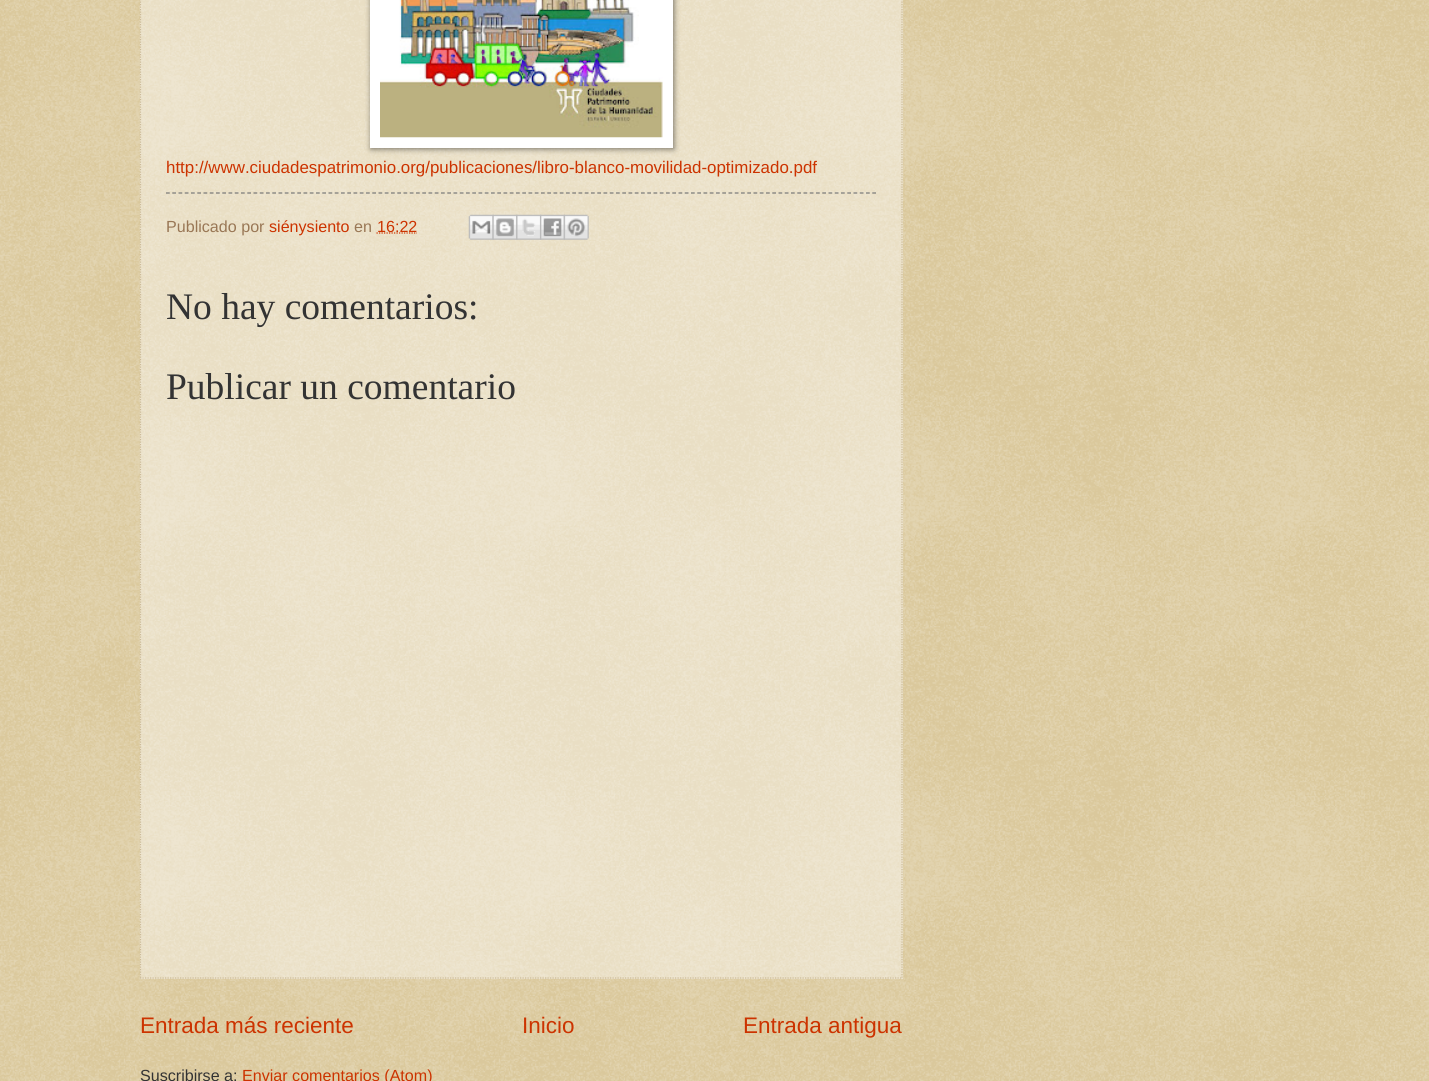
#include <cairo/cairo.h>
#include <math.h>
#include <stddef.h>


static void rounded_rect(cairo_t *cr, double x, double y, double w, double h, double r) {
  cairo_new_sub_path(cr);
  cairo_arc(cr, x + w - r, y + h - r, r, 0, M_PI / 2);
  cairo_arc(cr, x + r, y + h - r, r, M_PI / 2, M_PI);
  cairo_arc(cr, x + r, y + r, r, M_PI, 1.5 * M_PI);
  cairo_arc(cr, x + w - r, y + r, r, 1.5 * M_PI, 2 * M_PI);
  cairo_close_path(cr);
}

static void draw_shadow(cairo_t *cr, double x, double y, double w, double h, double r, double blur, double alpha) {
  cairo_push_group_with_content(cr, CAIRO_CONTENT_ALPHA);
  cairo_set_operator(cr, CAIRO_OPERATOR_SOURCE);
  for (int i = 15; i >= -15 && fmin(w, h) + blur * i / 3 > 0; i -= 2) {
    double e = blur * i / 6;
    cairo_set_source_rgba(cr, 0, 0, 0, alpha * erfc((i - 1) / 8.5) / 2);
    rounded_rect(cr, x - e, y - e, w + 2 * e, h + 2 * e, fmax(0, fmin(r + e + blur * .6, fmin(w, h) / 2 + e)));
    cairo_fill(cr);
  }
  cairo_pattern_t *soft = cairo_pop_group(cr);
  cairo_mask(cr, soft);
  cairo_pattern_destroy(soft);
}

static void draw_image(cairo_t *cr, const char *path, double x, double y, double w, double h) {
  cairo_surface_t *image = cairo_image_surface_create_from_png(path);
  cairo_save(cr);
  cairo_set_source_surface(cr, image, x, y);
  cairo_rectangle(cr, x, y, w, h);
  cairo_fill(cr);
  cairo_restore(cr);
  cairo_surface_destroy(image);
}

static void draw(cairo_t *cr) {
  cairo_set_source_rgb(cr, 192 / 255.0, 161 / 255.0, 84 / 255.0);
  cairo_paint(cr);
  draw_image(cr, "images/1.png", 0, 0, 1429, 1081);
  cairo_set_source_rgba(cr, 1, 1, 1, 0.4);
  cairo_rectangle(cr, 140, 0, 763, 979);
  cairo_fill(cr);
  cairo_new_path(cr);
  cairo_move_to(cr, 902, -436);
  cairo_line_to(cr, 902, 979);
  cairo_set_source_rgb(cr, 204 / 255.0, 187 / 255.0, 153 / 255.0);
  cairo_set_line_width(cr, 1.2);
  cairo_set_dash(cr, (double[]){1.25, 1.25}, 2, 0);
  cairo_stroke(cr);
  cairo_new_path(cr);
  cairo_move_to(cr, 140, 978);
  cairo_line_to(cr, 902.5, 978);
  cairo_stroke(cr);
  cairo_new_path(cr);
  cairo_move_to(cr, 140.5, -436);
  cairo_line_to(cr, 140.5, 979);
  cairo_stroke(cr);
  cairo_set_source_rgb(cr, 0, 0, 0);
  draw_shadow(cr, 371, -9, 303, 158, 0, 3, 0.5);
  cairo_set_source_rgb(cr, 1, 1, 1);
  cairo_rectangle(cr, 370, 0, 303, 148);
  cairo_fill(cr);
  draw_image(cr, "images/2.png", 380, 0, 283, 138);
  cairo_new_path(cr);
  cairo_move_to(cr, 166, 193);
  cairo_line_to(cr, 876, 193);
  cairo_set_source_rgb(cr, 119 / 255.0, 119 / 255.0, 119 / 255.0);
  cairo_set_dash(cr, (double[]){3.75, 2.5}, 2, 0);
  cairo_stroke(cr);
  cairo_new_path(cr);
  cairo_move_to(cr, 376.5, 233);
  cairo_line_to(cr, 417, 233);
  cairo_set_source_rgb(cr, 204 / 255.0, 51 / 255.0, 0);
  cairo_set_dash(cr, (double[]){1.25, 1.25}, 2, 0);
  cairo_stroke(cr);
  draw_image(cr, "images/3.png", 468, 214, 26, 26);
  draw_image(cr, "images/4.png", 492, 214, 26, 26);
  draw_image(cr, "images/5.png", 516, 214, 26, 26);
  draw_image(cr, "images/6.png", 540, 214, 25, 26);
  draw_image(cr, "images/7.png", 563, 214, 26, 26);
  cairo_select_font_face(cr, "Liberation Sans", CAIRO_FONT_SLANT_NORMAL, CAIRO_FONT_WEIGHT_NORMAL);
  cairo_set_font_size(cr, 16.9);
  cairo_move_to(cr, 166, 173);
  cairo_show_text(cr, "http://www.ciudadespatrimonio.org/publicaciones/libro-blanco-movilidad-optimizado.pdf");
  cairo_set_font_size(cr, 16.1);
  cairo_set_source_rgb(cr, 153 / 255.0, 119 / 255.0, 85 / 255.0);
  cairo_move_to(cr, 166, 232);
  cairo_show_text(cr, "Publicado por");
  cairo_set_source_rgb(cr, 204 / 255.0, 51 / 255.0, 0);
  cairo_move_to(cr, 269, 232);
  cairo_show_text(cr, "siénysiento");
  cairo_set_source_rgb(cr, 153 / 255.0, 119 / 255.0, 85 / 255.0);
  cairo_move_to(cr, 354, 232);
  cairo_show_text(cr, "en");
  cairo_set_source_rgb(cr, 204 / 255.0, 51 / 255.0, 0);
  cairo_move_to(cr, 377, 232);
  cairo_show_text(cr, "16:22");
  cairo_select_font_face(cr, "Liberation Serif", CAIRO_FONT_SLANT_NORMAL, CAIRO_FONT_WEIGHT_NORMAL);
  cairo_set_font_size(cr, 37.5);
  cairo_set_source_rgb(cr, 51 / 255.0, 51 / 255.0, 51 / 255.0);
  cairo_move_to(cr, 166, 319);
  cairo_show_text(cr, "No hay comentarios:");
  cairo_move_to(cr, 166, 399);
  cairo_show_text(cr, "Publicar un comentario");
  cairo_select_font_face(cr, "Liberation Sans", CAIRO_FONT_SLANT_NORMAL, CAIRO_FONT_WEIGHT_NORMAL);
  cairo_set_font_size(cr, 22.5);
  cairo_set_source_rgb(cr, 204 / 255.0, 51 / 255.0, 0);
  cairo_move_to(cr, 140, 1033);
  cairo_show_text(cr, "Entrada más reciente");
  cairo_move_to(cr, 522, 1033);
  cairo_show_text(cr, "Inicio");
  cairo_move_to(cr, 743, 1033);
  cairo_show_text(cr, "Entrada antigua");
  cairo_set_font_size(cr, 16.1);
  cairo_set_source_rgb(cr, 51 / 255.0, 51 / 255.0, 51 / 255.0);
  cairo_move_to(cr, 140, 1081);
  cairo_show_text(cr, "Suscribirse a:");
  cairo_set_source_rgb(cr, 204 / 255.0, 51 / 255.0, 0);
  cairo_move_to(cr, 242, 1081);
  cairo_show_text(cr, "Enviar comentarios (Atom)");
}

int main(void) {
  cairo_surface_t *surface = cairo_image_surface_create(CAIRO_FORMAT_RGB24, 1429, 1081);
  cairo_t *cr = cairo_create(surface);
  cairo_font_options_t *options = cairo_font_options_create();
  cairo_font_options_set_hint_metrics(options, CAIRO_HINT_METRICS_OFF);
  cairo_font_options_set_hint_style(options, CAIRO_HINT_STYLE_NONE);
  cairo_set_font_options(cr, options);
  cairo_set_miter_limit(cr, 4);
  draw(cr);
  cairo_surface_write_to_png(surface, "out.png");
  cairo_font_options_destroy(options);
  cairo_destroy(cr);
  cairo_surface_destroy(surface);
  return 0;
}
